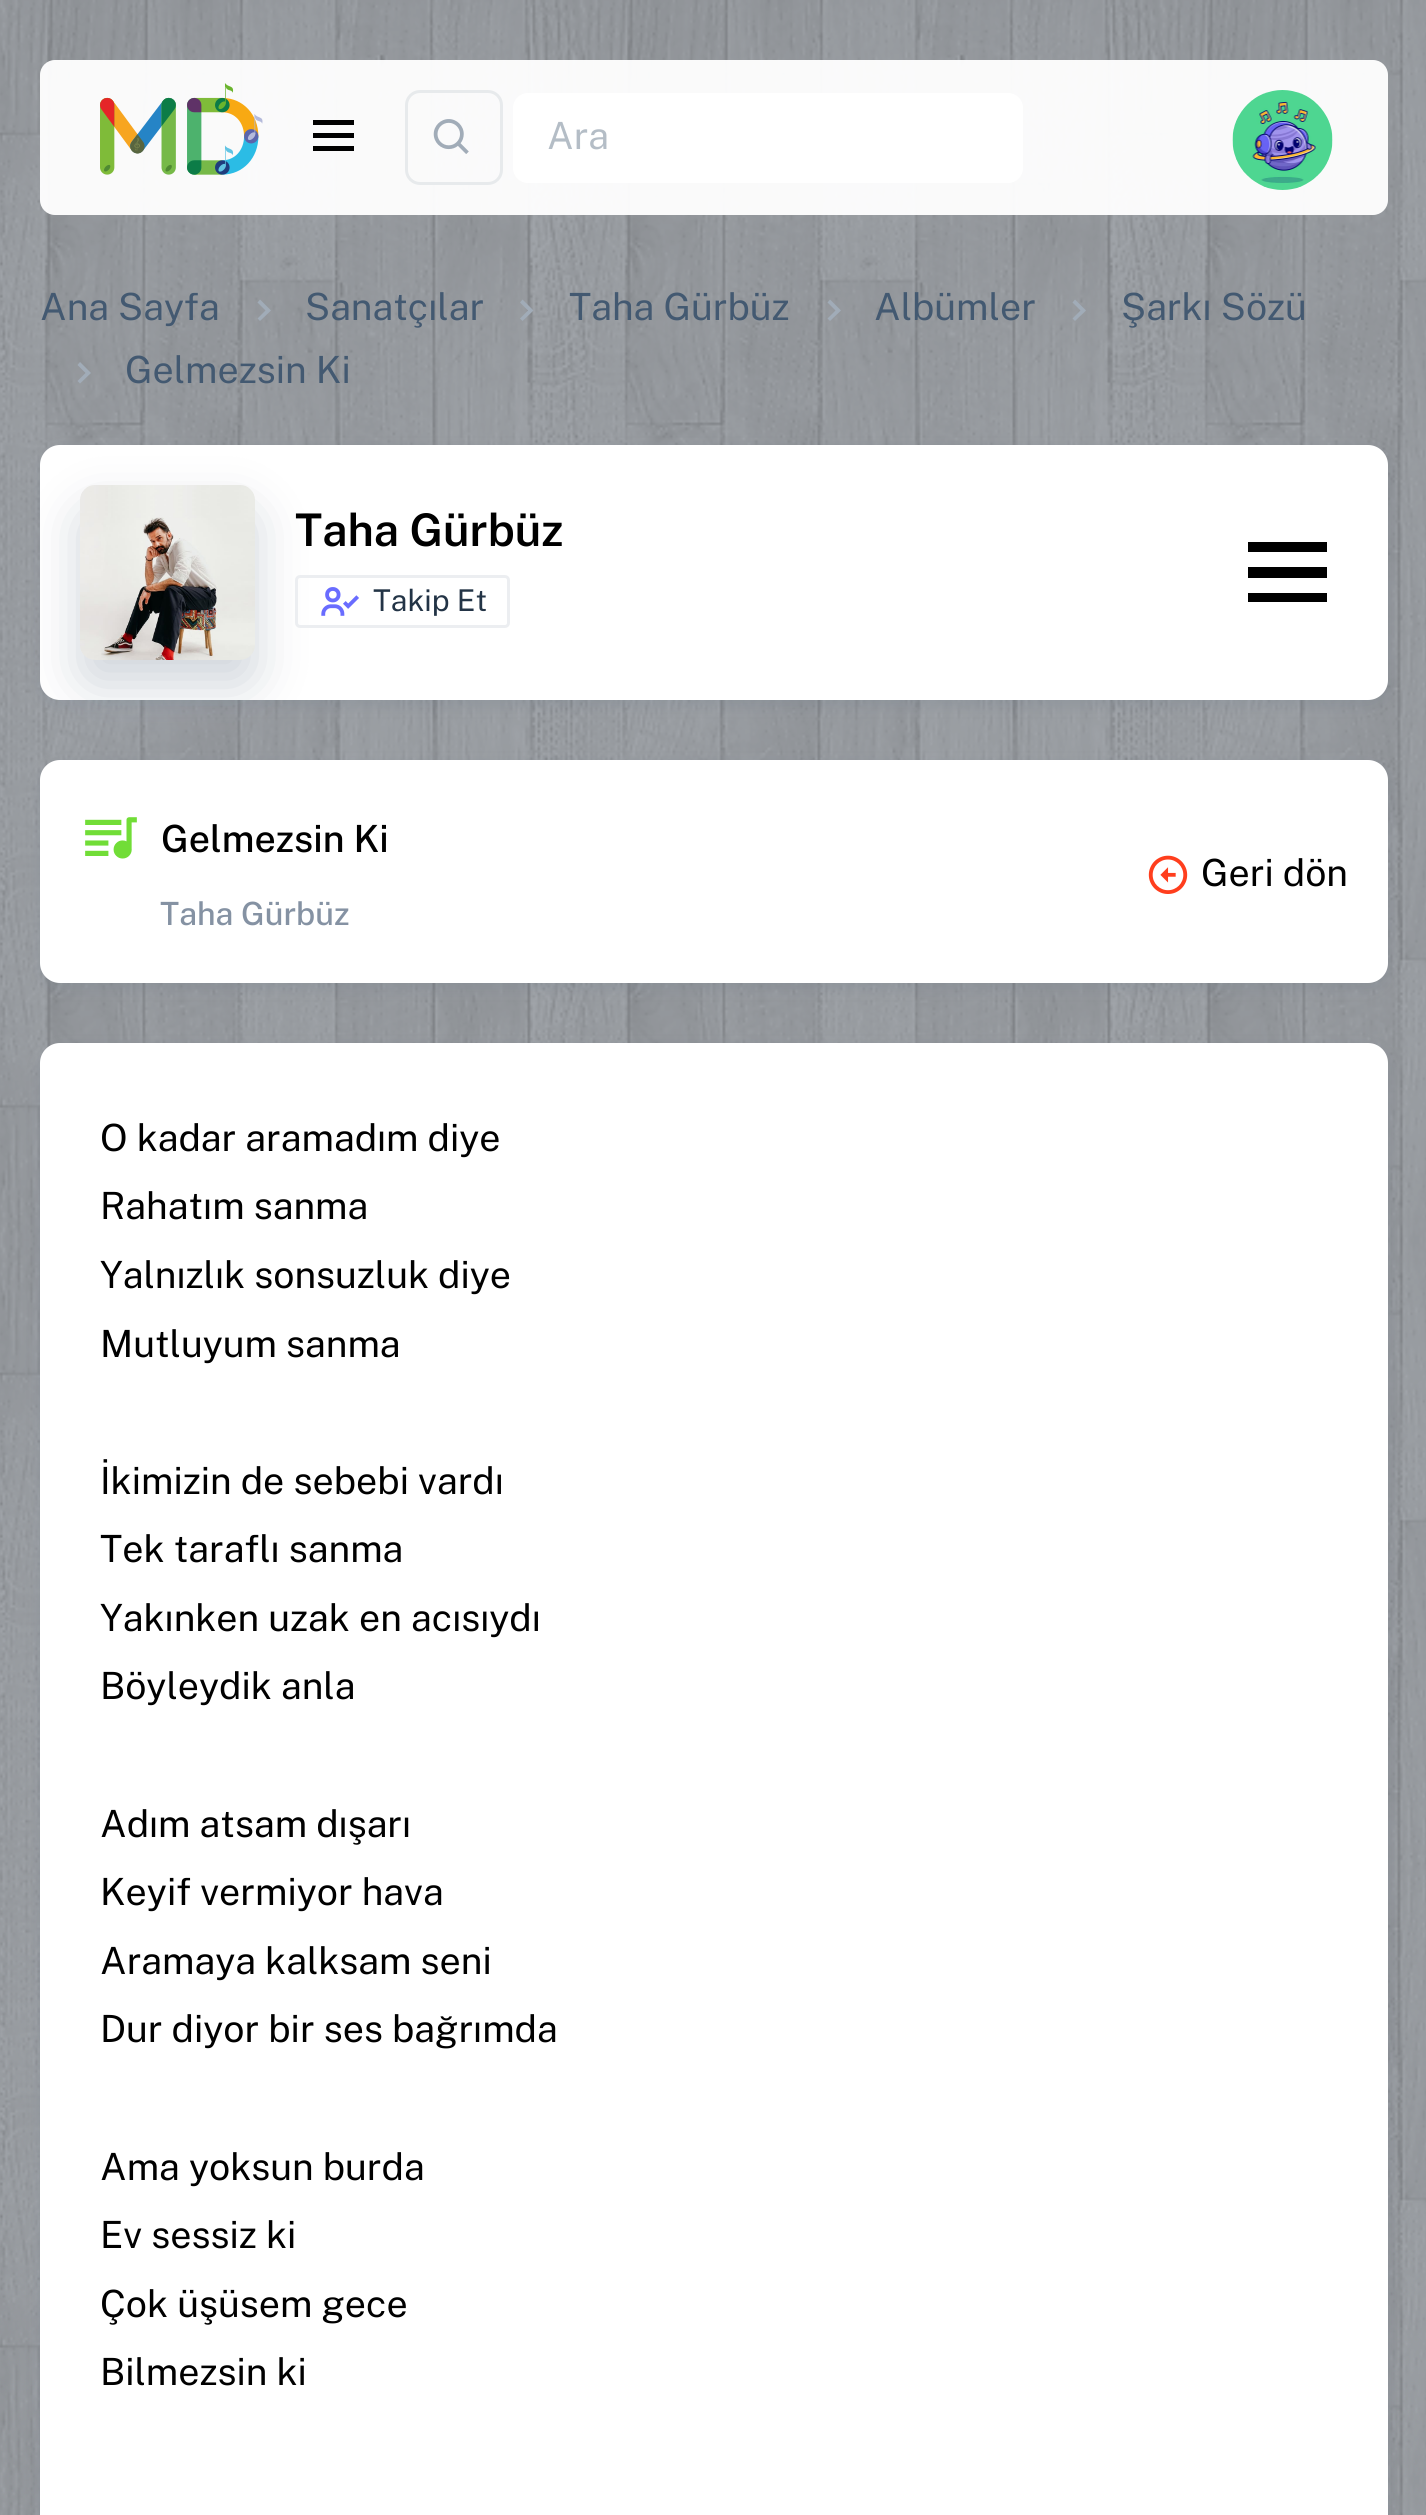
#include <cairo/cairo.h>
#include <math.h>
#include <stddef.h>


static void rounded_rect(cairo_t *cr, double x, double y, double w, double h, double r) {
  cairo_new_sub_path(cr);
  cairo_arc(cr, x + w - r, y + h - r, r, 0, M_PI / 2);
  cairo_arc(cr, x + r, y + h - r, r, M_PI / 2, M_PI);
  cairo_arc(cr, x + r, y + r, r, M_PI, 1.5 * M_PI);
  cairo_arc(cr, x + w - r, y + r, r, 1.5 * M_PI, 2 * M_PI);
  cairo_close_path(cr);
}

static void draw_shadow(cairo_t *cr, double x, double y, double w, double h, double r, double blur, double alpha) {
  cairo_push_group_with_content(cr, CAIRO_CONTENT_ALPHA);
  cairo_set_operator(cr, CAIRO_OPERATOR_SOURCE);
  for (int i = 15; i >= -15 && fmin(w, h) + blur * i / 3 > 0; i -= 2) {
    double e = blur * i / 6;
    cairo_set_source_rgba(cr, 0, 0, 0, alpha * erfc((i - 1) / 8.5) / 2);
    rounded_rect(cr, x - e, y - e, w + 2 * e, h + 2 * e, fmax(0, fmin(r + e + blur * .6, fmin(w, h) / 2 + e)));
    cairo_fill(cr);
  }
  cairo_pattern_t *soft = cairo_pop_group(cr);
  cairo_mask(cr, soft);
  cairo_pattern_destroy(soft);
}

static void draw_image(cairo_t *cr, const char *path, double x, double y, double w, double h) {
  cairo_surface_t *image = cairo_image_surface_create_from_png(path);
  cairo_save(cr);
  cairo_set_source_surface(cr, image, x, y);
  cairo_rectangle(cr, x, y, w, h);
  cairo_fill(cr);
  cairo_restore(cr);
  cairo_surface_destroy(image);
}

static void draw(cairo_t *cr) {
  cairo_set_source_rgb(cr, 160 / 255.0, 164 / 255.0, 169 / 255.0);
  cairo_paint(cr);
  draw_image(cr, "images/1.png", 0, 0, 1426, 2515);
  cairo_set_source_rgba(cr, 1, 1, 1, 0.95);
  rounded_rect(cr, 40, 60, 1348, 155, 15);
  cairo_fill(cr);
  draw_image(cr, "images/2.png", 100, 83, 163, 92);
  cairo_set_source_rgb(cr, 0, 0, 0);
  cairo_new_path(cr);
  cairo_move_to(cr, 313, 120);
  cairo_line_to(cr, 354, 120);
  cairo_line_to(cr, 354, 125);
  cairo_line_to(cr, 313, 125);
  cairo_close_path(cr);
  cairo_move_to(cr, 313, 133);
  cairo_line_to(cr, 354, 133);
  cairo_line_to(cr, 354, 138);
  cairo_line_to(cr, 313, 138);
  cairo_close_path(cr);
  cairo_move_to(cr, 313, 146);
  cairo_line_to(cr, 354, 146);
  cairo_line_to(cr, 354, 151);
  cairo_line_to(cr, 313, 151);
  cairo_close_path(cr);
  cairo_fill(cr);
  rounded_rect(cr, 406.5, 91.5, 95, 92, 13.5);
  cairo_set_source_rgb(cr, 231 / 255.0, 234 / 255.0, 236 / 255.0);
  cairo_set_line_width(cr, 3);
  cairo_stroke(cr);
  draw_image(cr, "images/3.png", 433, 119, 36, 35);
  cairo_set_source_rgb(cr, 1, 1, 1);
  rounded_rect(cr, 513, 93, 510, 90, 15);
  cairo_fill(cr);
  draw_image(cr, "images/4.png", 1232, 90, 101, 100);
  cairo_set_source_rgb(cr, 161 / 255.0, 172 / 255.0, 184 / 255.0);
  cairo_new_path(cr);
  cairo_move_to(cr, 260, 321);
  cairo_line_to(cr, 271, 310.5);
  cairo_line_to(cr, 260, 299.5);
  cairo_line_to(cr, 257.5, 302.5);
  cairo_line_to(cr, 265.5, 310.5);
  cairo_line_to(cr, 257.5, 318.5);
  cairo_close_path(cr);
  cairo_fill(cr);
  cairo_new_path(cr);
  cairo_move_to(cr, 522.5, 321);
  cairo_line_to(cr, 533.5, 310.5);
  cairo_line_to(cr, 522.5, 299.5);
  cairo_line_to(cr, 520, 302.5);
  cairo_line_to(cr, 528, 310.5);
  cairo_line_to(cr, 520, 318.5);
  cairo_close_path(cr);
  cairo_fill(cr);
  cairo_new_path(cr);
  cairo_move_to(cr, 830, 321);
  cairo_line_to(cr, 841, 310.5);
  cairo_line_to(cr, 830, 299.5);
  cairo_line_to(cr, 827.5, 302.5);
  cairo_line_to(cr, 835.5, 310.5);
  cairo_line_to(cr, 827.5, 318.5);
  cairo_close_path(cr);
  cairo_fill(cr);
  cairo_new_path(cr);
  cairo_move_to(cr, 1075, 321);
  cairo_line_to(cr, 1086, 310.5);
  cairo_line_to(cr, 1075, 299.5);
  cairo_line_to(cr, 1072.5, 302.5);
  cairo_line_to(cr, 1080.5, 310.5);
  cairo_line_to(cr, 1072.5, 318.5);
  cairo_close_path(cr);
  cairo_fill(cr);
  cairo_new_path(cr);
  cairo_move_to(cr, 80, 383.5);
  cairo_line_to(cr, 91, 373);
  cairo_line_to(cr, 80, 362);
  cairo_line_to(cr, 77.5, 365);
  cairo_line_to(cr, 85.5, 373);
  cairo_line_to(cr, 77.5, 381);
  cairo_close_path(cr);
  cairo_fill(cr);
  cairo_set_source_rgb(cr, 67 / 255.0, 89 / 255.0, 113 / 255.0);
  draw_shadow(cr, 40, 450, 1348, 255, 20, 7.5, 0.12);
  cairo_set_source_rgb(cr, 1, 1, 1);
  rounded_rect(cr, 40, 445, 1348, 255, 20);
  cairo_fill(cr);
  cairo_set_source_rgb(cr, 161 / 255.0, 172 / 255.0, 184 / 255.0);
  draw_shadow(cr, 80, 510, 175, 175, 15, 25, 0.5);
  draw_image(cr, "images/5.png", 80, 485, 175, 175);
  rounded_rect(cr, 296.5, 576.5, 212, 50, 3.5);
  cairo_set_source_rgb(cr, 236 / 255.0, 238 / 255.0, 241 / 255.0);
  cairo_stroke(cr);
  draw_image(cr, "images/6.png", 321, 587, 38, 29);
  cairo_set_source_rgb(cr, 0, 0, 0);
  cairo_new_path(cr);
  cairo_move_to(cr, 1248, 542);
  cairo_line_to(cr, 1327, 542);
  cairo_line_to(cr, 1327, 552);
  cairo_line_to(cr, 1248, 552);
  cairo_close_path(cr);
  cairo_move_to(cr, 1248, 567);
  cairo_line_to(cr, 1327, 567);
  cairo_line_to(cr, 1327, 578);
  cairo_line_to(cr, 1248, 578);
  cairo_close_path(cr);
  cairo_move_to(cr, 1248, 593);
  cairo_line_to(cr, 1327, 593);
  cairo_line_to(cr, 1327, 602);
  cairo_line_to(cr, 1248, 602);
  cairo_close_path(cr);
  cairo_fill(cr);
  cairo_set_source_rgb(cr, 67 / 255.0, 89 / 255.0, 113 / 255.0);
  draw_shadow(cr, 40, 765, 1348, 223, 20, 7.5, 0.12);
  cairo_set_source_rgb(cr, 1, 1, 1);
  rounded_rect(cr, 40, 760, 1348, 223, 20);
  cairo_fill(cr);
  draw_image(cr, "images/7.png", 85, 817, 52, 42);
  draw_image(cr, "images/8.png", 1148, 855, 40, 39);
  cairo_set_source_rgb(cr, 67 / 255.0, 89 / 255.0, 113 / 255.0);
  draw_shadow(cr, 40, 1048, 1348, 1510, 20, 7.5, 0.12);
  cairo_set_source_rgb(cr, 1, 1, 1);
  rounded_rect(cr, 40, 1043, 1348, 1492, 20);
  cairo_fill(cr);
  cairo_select_font_face(cr, "Public Sans", CAIRO_FONT_SLANT_NORMAL, CAIRO_FONT_WEIGHT_NORMAL);
  cairo_set_font_size(cr, 37.5);
  cairo_set_source_rgb(cr, 180 / 255.0, 189 / 255.0, 198 / 255.0);
  cairo_move_to(cr, 547, 149);
  cairo_show_text(cr, "Ara");
  cairo_set_source_rgb(cr, 67 / 255.0, 89 / 255.0, 113 / 255.0);
  cairo_move_to(cr, 40, 320);
  cairo_show_text(cr, "Ana Sayfa");
  cairo_move_to(cr, 305, 320);
  cairo_show_text(cr, "Sanatçılar");
  cairo_move_to(cr, 569, 320);
  cairo_show_text(cr, "Taha Gürbüz");
  cairo_move_to(cr, 874, 320);
  cairo_show_text(cr, "Albümler");
  cairo_move_to(cr, 1121, 320);
  cairo_show_text(cr, "Şarkı Sözü");
  cairo_move_to(cr, 125, 383);
  cairo_show_text(cr, "Gelmezsin Ki");
  cairo_select_font_face(cr, "Public Sans SemiBold", CAIRO_FONT_SLANT_NORMAL, CAIRO_FONT_WEIGHT_NORMAL);
  cairo_set_font_size(cr, 45);
  cairo_set_source_rgb(cr, 0, 0, 0);
  cairo_move_to(cr, 295, 546);
  cairo_show_text(cr, "Taha Gürbüz");
  cairo_select_font_face(cr, "Public Sans", CAIRO_FONT_SLANT_NORMAL, CAIRO_FONT_WEIGHT_NORMAL);
  cairo_set_font_size(cr, 30);
  cairo_set_source_rgb(cr, 35 / 255.0, 52 / 255.0, 70 / 255.0);
  cairo_move_to(cr, 373, 611);
  cairo_show_text(cr, "Takip Et");
  cairo_select_font_face(cr, "Public Sans Medium", CAIRO_FONT_SLANT_NORMAL, CAIRO_FONT_WEIGHT_NORMAL);
  cairo_set_font_size(cr, 37.5);
  cairo_set_source_rgb(cr, 0, 0, 0);
  cairo_move_to(cr, 161, 852);
  cairo_show_text(cr, "Gelmezsin Ki");
  cairo_set_font_size(cr, 32);
  cairo_set_source_rgb(cr, 133 / 255.0, 146 / 255.0, 163 / 255.0);
  cairo_move_to(cr, 160, 925);
  cairo_show_text(cr, "Taha Gürbüz");
  cairo_select_font_face(cr, "Public Sans", CAIRO_FONT_SLANT_NORMAL, CAIRO_FONT_WEIGHT_NORMAL);
  cairo_set_font_size(cr, 37.5);
  cairo_set_source_rgb(cr, 0, 0, 0);
  cairo_move_to(cr, 1201, 886);
  cairo_show_text(cr, "Geri dön");
  cairo_move_to(cr, 100, 1151);
  cairo_show_text(cr, "O kadar aramadım diye");
  cairo_move_to(cr, 100, 1219);
  cairo_show_text(cr, "Rahatım sanma");
  cairo_move_to(cr, 100, 1288);
  cairo_show_text(cr, "Yalnızlık sonsuzluk diye");
  cairo_move_to(cr, 100, 1357);
  cairo_show_text(cr, "Mutluyum sanma");
  cairo_move_to(cr, 100, 1494);
  cairo_show_text(cr, "İkimizin de sebebi vardı");
  cairo_move_to(cr, 100, 1562);
  cairo_show_text(cr, "Tek taraflı sanma");
  cairo_move_to(cr, 100, 1631);
  cairo_show_text(cr, "Yakınken uzak en acısıydı");
  cairo_move_to(cr, 100, 1699);
  cairo_show_text(cr, "Böyleydik anla");
  cairo_move_to(cr, 100, 1837);
  cairo_show_text(cr, "Adım atsam dışarı");
  cairo_move_to(cr, 100, 1905);
  cairo_show_text(cr, "Keyif vermiyor hava");
  cairo_move_to(cr, 100, 1974);
  cairo_show_text(cr, "Aramaya kalksam seni");
  cairo_move_to(cr, 100, 2042);
  cairo_show_text(cr, "Dur diyor bir ses bağrımda");
  cairo_move_to(cr, 100, 2180);
  cairo_show_text(cr, "Ama yoksun burda");
  cairo_move_to(cr, 100, 2248);
  cairo_show_text(cr, "Ev sessiz ki");
  cairo_move_to(cr, 100, 2317);
  cairo_show_text(cr, "Çok üşüsem gece");
  cairo_move_to(cr, 100, 2385);
  cairo_show_text(cr, "Bilmezsin ki");
}

int main(void) {
  cairo_surface_t *surface = cairo_image_surface_create(CAIRO_FORMAT_RGB24, 1426, 2515);
  cairo_t *cr = cairo_create(surface);
  cairo_font_options_t *options = cairo_font_options_create();
  cairo_font_options_set_hint_metrics(options, CAIRO_HINT_METRICS_OFF);
  cairo_font_options_set_hint_style(options, CAIRO_HINT_STYLE_NONE);
  cairo_set_font_options(cr, options);
  cairo_set_miter_limit(cr, 4);
  draw(cr);
  cairo_surface_write_to_png(surface, "out.png");
  cairo_font_options_destroy(options);
  cairo_destroy(cr);
  cairo_surface_destroy(surface);
  return 0;
}
